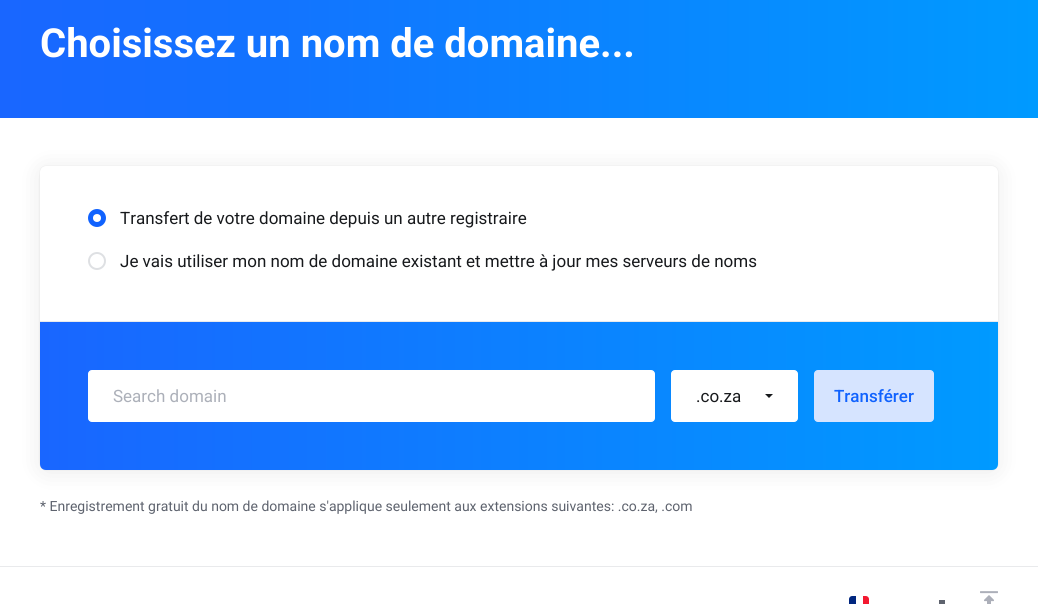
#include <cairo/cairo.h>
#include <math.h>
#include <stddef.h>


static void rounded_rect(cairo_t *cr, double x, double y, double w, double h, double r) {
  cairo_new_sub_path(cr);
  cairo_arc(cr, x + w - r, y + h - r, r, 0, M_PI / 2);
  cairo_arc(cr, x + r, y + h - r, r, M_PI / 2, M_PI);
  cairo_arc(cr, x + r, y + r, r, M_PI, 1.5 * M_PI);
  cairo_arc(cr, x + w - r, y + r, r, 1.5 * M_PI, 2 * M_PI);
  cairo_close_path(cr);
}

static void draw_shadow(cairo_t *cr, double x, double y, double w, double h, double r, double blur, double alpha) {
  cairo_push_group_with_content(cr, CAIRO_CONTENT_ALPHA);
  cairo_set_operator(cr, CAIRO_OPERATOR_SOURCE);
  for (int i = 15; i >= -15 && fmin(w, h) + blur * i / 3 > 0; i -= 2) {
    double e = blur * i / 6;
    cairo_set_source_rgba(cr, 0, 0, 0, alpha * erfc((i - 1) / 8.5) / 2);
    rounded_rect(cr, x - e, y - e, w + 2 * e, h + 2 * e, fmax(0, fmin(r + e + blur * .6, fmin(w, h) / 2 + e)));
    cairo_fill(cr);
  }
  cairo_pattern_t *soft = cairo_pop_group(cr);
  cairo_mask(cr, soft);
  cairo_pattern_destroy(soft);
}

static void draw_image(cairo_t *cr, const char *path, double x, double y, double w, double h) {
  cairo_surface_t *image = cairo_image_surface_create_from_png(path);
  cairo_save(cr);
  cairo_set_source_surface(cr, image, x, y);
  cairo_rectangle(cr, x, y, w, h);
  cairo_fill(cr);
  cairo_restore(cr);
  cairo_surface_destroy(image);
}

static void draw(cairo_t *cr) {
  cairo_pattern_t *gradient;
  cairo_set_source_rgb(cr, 1, 1, 1);
  cairo_paint(cr);
  gradient = cairo_pattern_create_linear(0, 44, 1038, 44);
  cairo_pattern_add_color_stop_rgba(gradient, 0, 25 / 255.0, 102 / 255.0, 1, 1);
  cairo_pattern_add_color_stop_rgba(gradient, 1, 0, 154 / 255.0, 1, 1);
  cairo_set_source(cr, gradient);
  cairo_pattern_destroy(gradient);
  cairo_rectangle(cr, 0, 0, 1038, 118);
  cairo_fill(cr);
  cairo_set_source_rgb(cr, 0, 0, 0);
  draw_shadow(cr, 40, 168, 958, 304, 6, 12, 0.08);
  draw_shadow(cr, 40, 166, 958, 304, 6, 0.5, 0.1);
  cairo_set_source_rgb(cr, 1, 1, 1);
  rounded_rect(cr, 40, 166, 958, 304, 6);
  cairo_fill(cr);
  cairo_set_source_rgb(cr, 16 / 255.0, 98 / 255.0, 254 / 255.0);
  cairo_arc(cr, 97, 218, 8, 0, 2 * M_PI);
  cairo_fill_preserve(cr);
  cairo_stroke(cr);
  cairo_set_source_rgb(cr, 1, 1, 1);
  cairo_arc(cr, 97, 218, 4, 0, 2 * M_PI);
  cairo_fill(cr);
  cairo_arc(cr, 97, 261, 8, 0, 2 * M_PI);
  cairo_set_source_rgb(cr, 222 / 255.0, 224 / 255.0, 227 / 255.0);
  cairo_stroke(cr);
  gradient = cairo_pattern_create_linear(40, 396, 998, 396);
  cairo_pattern_add_color_stop_rgba(gradient, 0, 25 / 255.0, 102 / 255.0, 1, 1);
  cairo_pattern_add_color_stop_rgba(gradient, 1, 0, 154 / 255.0, 1, 1);
  cairo_set_source(cr, gradient);
  cairo_pattern_destroy(gradient);
  cairo_new_path(cr);
  cairo_move_to(cr, 40, 321);
  cairo_line_to(cr, 998, 321);
  cairo_line_to(cr, 998, 464);
  cairo_curve_to(cr, 998, 467.5, 995.5, 470, 992, 470);
  cairo_line_to(cr, 46, 470);
  cairo_curve_to(cr, 42.5, 470, 40, 467.5, 40, 464);
  cairo_close_path(cr);
  cairo_fill(cr);
  cairo_set_source_rgb(cr, 233 / 255.0, 234 / 255.0, 236 / 255.0);
  cairo_rectangle(cr, 40, 321, 958, 1);
  cairo_fill(cr);
  cairo_set_source_rgb(cr, 1, 1, 1);
  rounded_rect(cr, 88.5, 370.5, 566, 51, 3.5);
  cairo_fill_preserve(cr);
  cairo_set_line_width(cr, 1);
  cairo_stroke(cr);
  rounded_rect(cr, 671.5, 370.5, 126, 51, 3.5);
  cairo_fill_preserve(cr);
  cairo_stroke(cr);
  cairo_set_source_rgb(cr, 23 / 255.0, 25 / 255.0, 28 / 255.0);
  cairo_new_path(cr);
  cairo_move_to(cr, 765, 394);
  cairo_line_to(cr, 773, 394);
  cairo_line_to(cr, 769, 398);
  cairo_close_path(cr);
  cairo_fill(cr);
  cairo_set_source_rgb(cr, 214 / 255.0, 228 / 255.0, 1);
  rounded_rect(cr, 814.5, 370.5, 119, 51, 3.5);
  cairo_fill_preserve(cr);
  cairo_stroke(cr);
  cairo_set_source_rgb(cr, 233 / 255.0, 234 / 255.0, 236 / 255.0);
  cairo_rectangle(cr, 0, 566, 1038, 1);
  cairo_fill(cr);
  cairo_set_source_rgb(cr, 0, 38 / 255.0, 127 / 255.0);
  cairo_new_path(cr);
  cairo_move_to(cr, 852, 596);
  cairo_line_to(cr, 856, 596);
  cairo_line_to(cr, 856, 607);
  cairo_line_to(cr, 852, 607);
  cairo_curve_to(cr, 850.5, 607, 849, 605.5, 849, 604);
  cairo_line_to(cr, 849, 599);
  cairo_curve_to(cr, 849, 597.5, 850.5, 596, 852, 596);
  cairo_close_path(cr);
  cairo_fill(cr);
  cairo_set_source_rgb(cr, 243 / 255.0, 24 / 255.0, 48 / 255.0);
  cairo_new_path(cr);
  cairo_move_to(cr, 863, 596);
  cairo_line_to(cr, 866, 596);
  cairo_curve_to(cr, 867.5, 596, 869, 597.5, 869, 599);
  cairo_line_to(cr, 869, 604);
  cairo_curve_to(cr, 869, 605.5, 867.5, 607, 866, 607);
  cairo_line_to(cr, 863, 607);
  cairo_close_path(cr);
  cairo_fill(cr);
  cairo_set_source_rgb(cr, 94 / 255.0, 99 / 255.0, 110 / 255.0);
  cairo_rectangle(cr, 939, 600, 6, 4);
  cairo_fill(cr);
  draw_image(cr, "images/1.png", 980, 591, 18, 13);
  cairo_select_font_face(cr, "Roboto", CAIRO_FONT_SLANT_NORMAL, CAIRO_FONT_WEIGHT_BOLD);
  cairo_set_font_size(cr, 40);
  cairo_set_source_rgb(cr, 1, 1, 1);
  cairo_move_to(cr, 40, 57);
  cairo_show_text(cr, "Choisissez un nom de domaine...");
  cairo_select_font_face(cr, "Roboto", CAIRO_FONT_SLANT_NORMAL, CAIRO_FONT_WEIGHT_NORMAL);
  cairo_set_font_size(cr, 17);
  cairo_set_source_rgb(cr, 23 / 255.0, 25 / 255.0, 28 / 255.0);
  cairo_move_to(cr, 120, 224);
  cairo_show_text(cr, "Transfert de votre domaine depuis un autre registraire");
  cairo_move_to(cr, 120, 267);
  cairo_show_text(cr, "Je vais utiliser mon nom de domaine existant et mettre à jour mes serveurs de noms");
  cairo_set_source_rgb(cr, 172 / 255.0, 176 / 255.0, 185 / 255.0);
  cairo_move_to(cr, 113, 402);
  cairo_show_text(cr, "Search domain");
  cairo_set_source_rgb(cr, 23 / 255.0, 25 / 255.0, 28 / 255.0);
  cairo_move_to(cr, 696, 402);
  cairo_show_text(cr, ".co.za");
  cairo_select_font_face(cr, "Roboto Medium", CAIRO_FONT_SLANT_NORMAL, CAIRO_FONT_WEIGHT_NORMAL);
  cairo_set_source_rgb(cr, 16 / 255.0, 98 / 255.0, 254 / 255.0);
  cairo_move_to(cr, 834, 402);
  cairo_show_text(cr, "Transférer");
  cairo_select_font_face(cr, "Roboto", CAIRO_FONT_SLANT_NORMAL, CAIRO_FONT_WEIGHT_NORMAL);
  cairo_set_font_size(cr, 14);
  cairo_set_source_rgb(cr, 94 / 255.0, 99 / 255.0, 110 / 255.0);
  cairo_move_to(cr, 40, 511);
  cairo_show_text(cr, "* Enregistrement gratuit du nom de domaine s'applique seulement aux extensions suivantes: .co.za, .com");
}

int main(void) {
  cairo_surface_t *surface = cairo_image_surface_create(CAIRO_FORMAT_RGB24, 1038, 604);
  cairo_t *cr = cairo_create(surface);
  cairo_font_options_t *options = cairo_font_options_create();
  cairo_font_options_set_hint_metrics(options, CAIRO_HINT_METRICS_OFF);
  cairo_font_options_set_hint_style(options, CAIRO_HINT_STYLE_NONE);
  cairo_set_font_options(cr, options);
  cairo_set_miter_limit(cr, 4);
  draw(cr);
  cairo_surface_write_to_png(surface, "out.png");
  cairo_font_options_destroy(options);
  cairo_destroy(cr);
  cairo_surface_destroy(surface);
  return 0;
}
